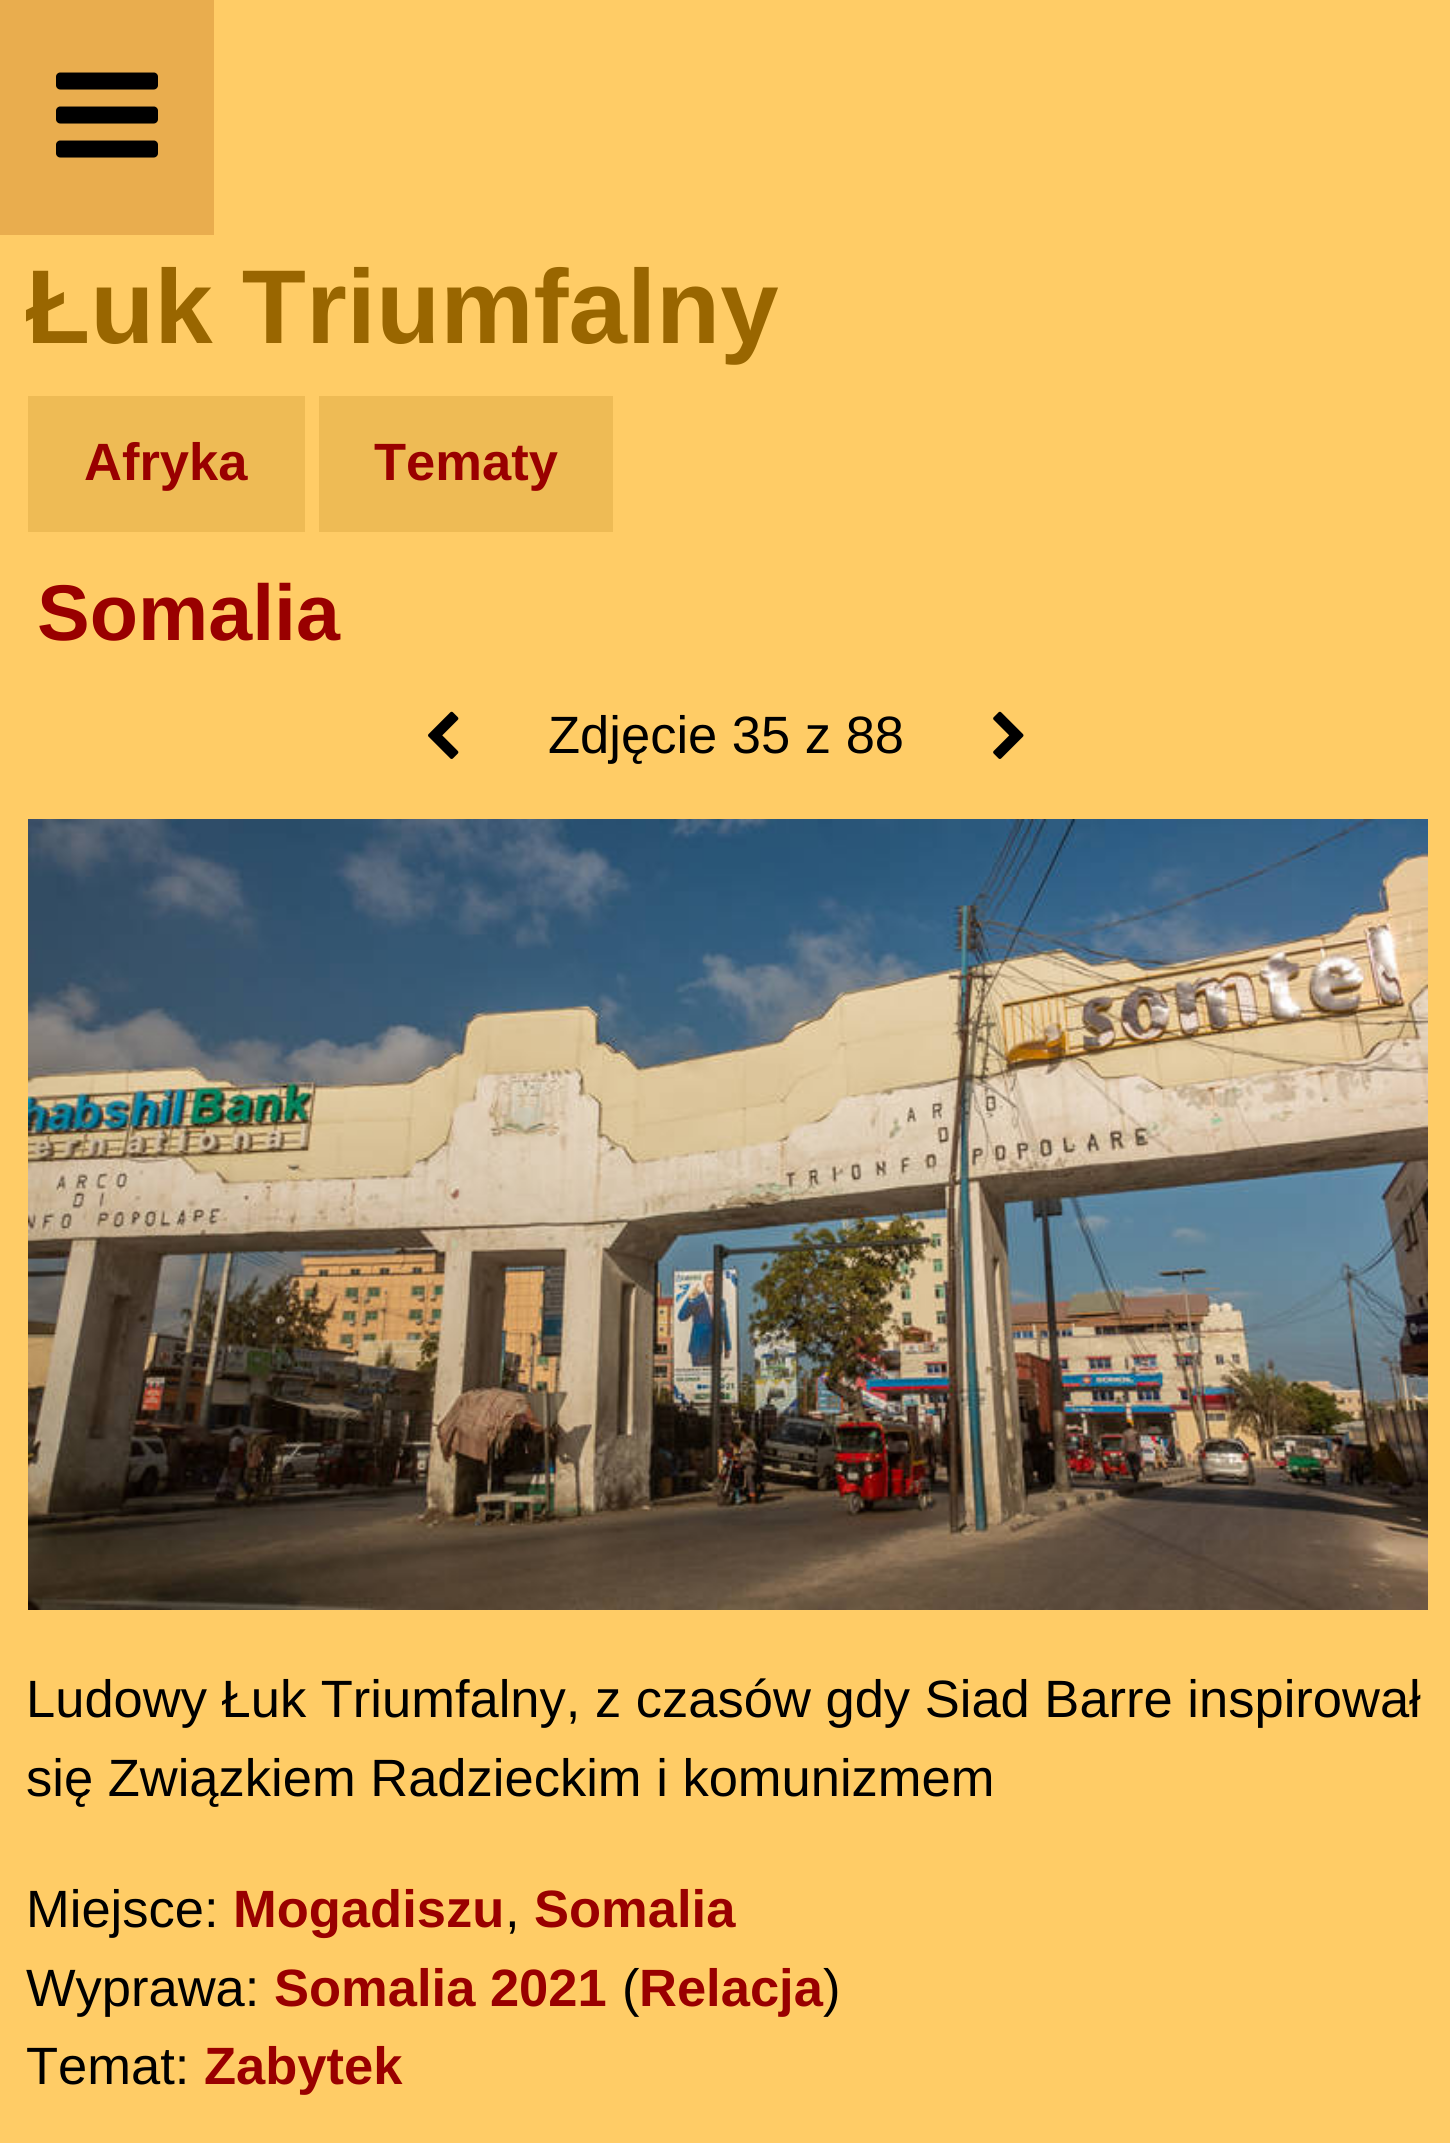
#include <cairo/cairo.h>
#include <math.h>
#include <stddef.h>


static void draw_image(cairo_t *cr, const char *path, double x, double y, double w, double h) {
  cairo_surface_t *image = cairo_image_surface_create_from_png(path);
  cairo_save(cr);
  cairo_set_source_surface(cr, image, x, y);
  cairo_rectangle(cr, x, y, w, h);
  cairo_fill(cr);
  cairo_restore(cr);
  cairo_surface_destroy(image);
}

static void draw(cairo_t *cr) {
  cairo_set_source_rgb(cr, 1, 204 / 255.0, 102 / 255.0);
  cairo_paint(cr);
  cairo_set_source_rgb(cr, 233 / 255.0, 173 / 255.0, 78 / 255.0);
  cairo_rectangle(cr, 0, 0, 214, 235);
  cairo_fill(cr);
  draw_image(cr, "images/1.png", 56, 72, 102, 86);
  cairo_set_source_rgb(cr, 238 / 255.0, 187 / 255.0, 85 / 255.0);
  cairo_rectangle(cr, 28, 396, 277, 136);
  cairo_fill(cr);
  cairo_rectangle(cr, 319, 396, 294, 136);
  cairo_fill(cr);
  draw_image(cr, "images/2.png", 428, 711, 31, 48);
  draw_image(cr, "images/3.png", 993, 711, 31, 48);
  draw_image(cr, "images/4.png", 28, 819, 1400, 791);
  cairo_select_font_face(cr, "Liberation Sans", CAIRO_FONT_SLANT_NORMAL, CAIRO_FONT_WEIGHT_BOLD);
  cairo_set_font_size(cr, 105);
  cairo_set_source_rgb(cr, 153 / 255.0, 102 / 255.0, 0);
  cairo_move_to(cr, 26, 343);
  cairo_show_text(cr, "Łuk Triumfalny");
  cairo_set_font_size(cr, 52.5);
  cairo_set_source_rgb(cr, 153 / 255.0, 0, 0);
  cairo_move_to(cr, 84, 480);
  cairo_show_text(cr, "Afryka");
  cairo_move_to(cr, 374, 480);
  cairo_show_text(cr, "Tematy");
  cairo_set_font_size(cr, 79);
  cairo_move_to(cr, 37, 640);
  cairo_show_text(cr, "Somalia");
  cairo_select_font_face(cr, "Liberation Sans", CAIRO_FONT_SLANT_NORMAL, CAIRO_FONT_WEIGHT_NORMAL);
  cairo_set_font_size(cr, 52.5);
  cairo_set_source_rgb(cr, 0, 0, 0);
  cairo_move_to(cr, 548, 753);
  cairo_show_text(cr, "Zdjęcie 35 z 88");
  cairo_move_to(cr, 26, 1717);
  cairo_show_text(cr, "Ludowy Łuk Triumfalny, z czasów gdy Siad Barre inspirował");
  cairo_move_to(cr, 26, 1796);
  cairo_show_text(cr, "się Związkiem Radzieckim i komunizmem");
  cairo_move_to(cr, 26, 1927);
  cairo_show_text(cr, "Miejsce:");
  cairo_select_font_face(cr, "Liberation Sans", CAIRO_FONT_SLANT_NORMAL, CAIRO_FONT_WEIGHT_BOLD);
  cairo_set_source_rgb(cr, 153 / 255.0, 0, 0);
  cairo_move_to(cr, 233, 1927);
  cairo_show_text(cr, "Mogadiszu");
  cairo_select_font_face(cr, "Liberation Sans", CAIRO_FONT_SLANT_NORMAL, CAIRO_FONT_WEIGHT_NORMAL);
  cairo_set_source_rgb(cr, 0, 0, 0);
  cairo_move_to(cr, 505, 1927);
  cairo_show_text(cr, ",");
  cairo_select_font_face(cr, "Liberation Sans", CAIRO_FONT_SLANT_NORMAL, CAIRO_FONT_WEIGHT_BOLD);
  cairo_set_source_rgb(cr, 153 / 255.0, 0, 0);
  cairo_move_to(cr, 534, 1927);
  cairo_show_text(cr, "Somalia");
  cairo_select_font_face(cr, "Liberation Sans", CAIRO_FONT_SLANT_NORMAL, CAIRO_FONT_WEIGHT_NORMAL);
  cairo_set_source_rgb(cr, 0, 0, 0);
  cairo_move_to(cr, 26, 2006);
  cairo_show_text(cr, "Wyprawa:");
  cairo_select_font_face(cr, "Liberation Sans", CAIRO_FONT_SLANT_NORMAL, CAIRO_FONT_WEIGHT_BOLD);
  cairo_set_source_rgb(cr, 153 / 255.0, 0, 0);
  cairo_move_to(cr, 274, 2006);
  cairo_show_text(cr, "Somalia 2021");
  cairo_select_font_face(cr, "Liberation Sans", CAIRO_FONT_SLANT_NORMAL, CAIRO_FONT_WEIGHT_NORMAL);
  cairo_set_source_rgb(cr, 0, 0, 0);
  cairo_move_to(cr, 622, 2006);
  cairo_show_text(cr, "(");
  cairo_select_font_face(cr, "Liberation Sans", CAIRO_FONT_SLANT_NORMAL, CAIRO_FONT_WEIGHT_BOLD);
  cairo_set_source_rgb(cr, 153 / 255.0, 0, 0);
  cairo_move_to(cr, 639, 2006);
  cairo_show_text(cr, "Relacja");
  cairo_select_font_face(cr, "Liberation Sans", CAIRO_FONT_SLANT_NORMAL, CAIRO_FONT_WEIGHT_NORMAL);
  cairo_set_source_rgb(cr, 0, 0, 0);
  cairo_move_to(cr, 823, 2006);
  cairo_show_text(cr, ")");
  cairo_move_to(cr, 26, 2084);
  cairo_show_text(cr, "Temat:");
  cairo_select_font_face(cr, "Liberation Sans", CAIRO_FONT_SLANT_NORMAL, CAIRO_FONT_WEIGHT_BOLD);
  cairo_set_source_rgb(cr, 153 / 255.0, 0, 0);
  cairo_move_to(cr, 204, 2084);
  cairo_show_text(cr, "Zabytek");
}

int main(void) {
  cairo_surface_t *surface = cairo_image_surface_create(CAIRO_FORMAT_RGB24, 1450, 2143);
  cairo_t *cr = cairo_create(surface);
  cairo_font_options_t *options = cairo_font_options_create();
  cairo_font_options_set_hint_metrics(options, CAIRO_HINT_METRICS_OFF);
  cairo_font_options_set_hint_style(options, CAIRO_HINT_STYLE_NONE);
  cairo_set_font_options(cr, options);
  cairo_set_miter_limit(cr, 4);
  draw(cr);
  cairo_surface_write_to_png(surface, "out.png");
  cairo_font_options_destroy(options);
  cairo_destroy(cr);
  cairo_surface_destroy(surface);
  return 0;
}
